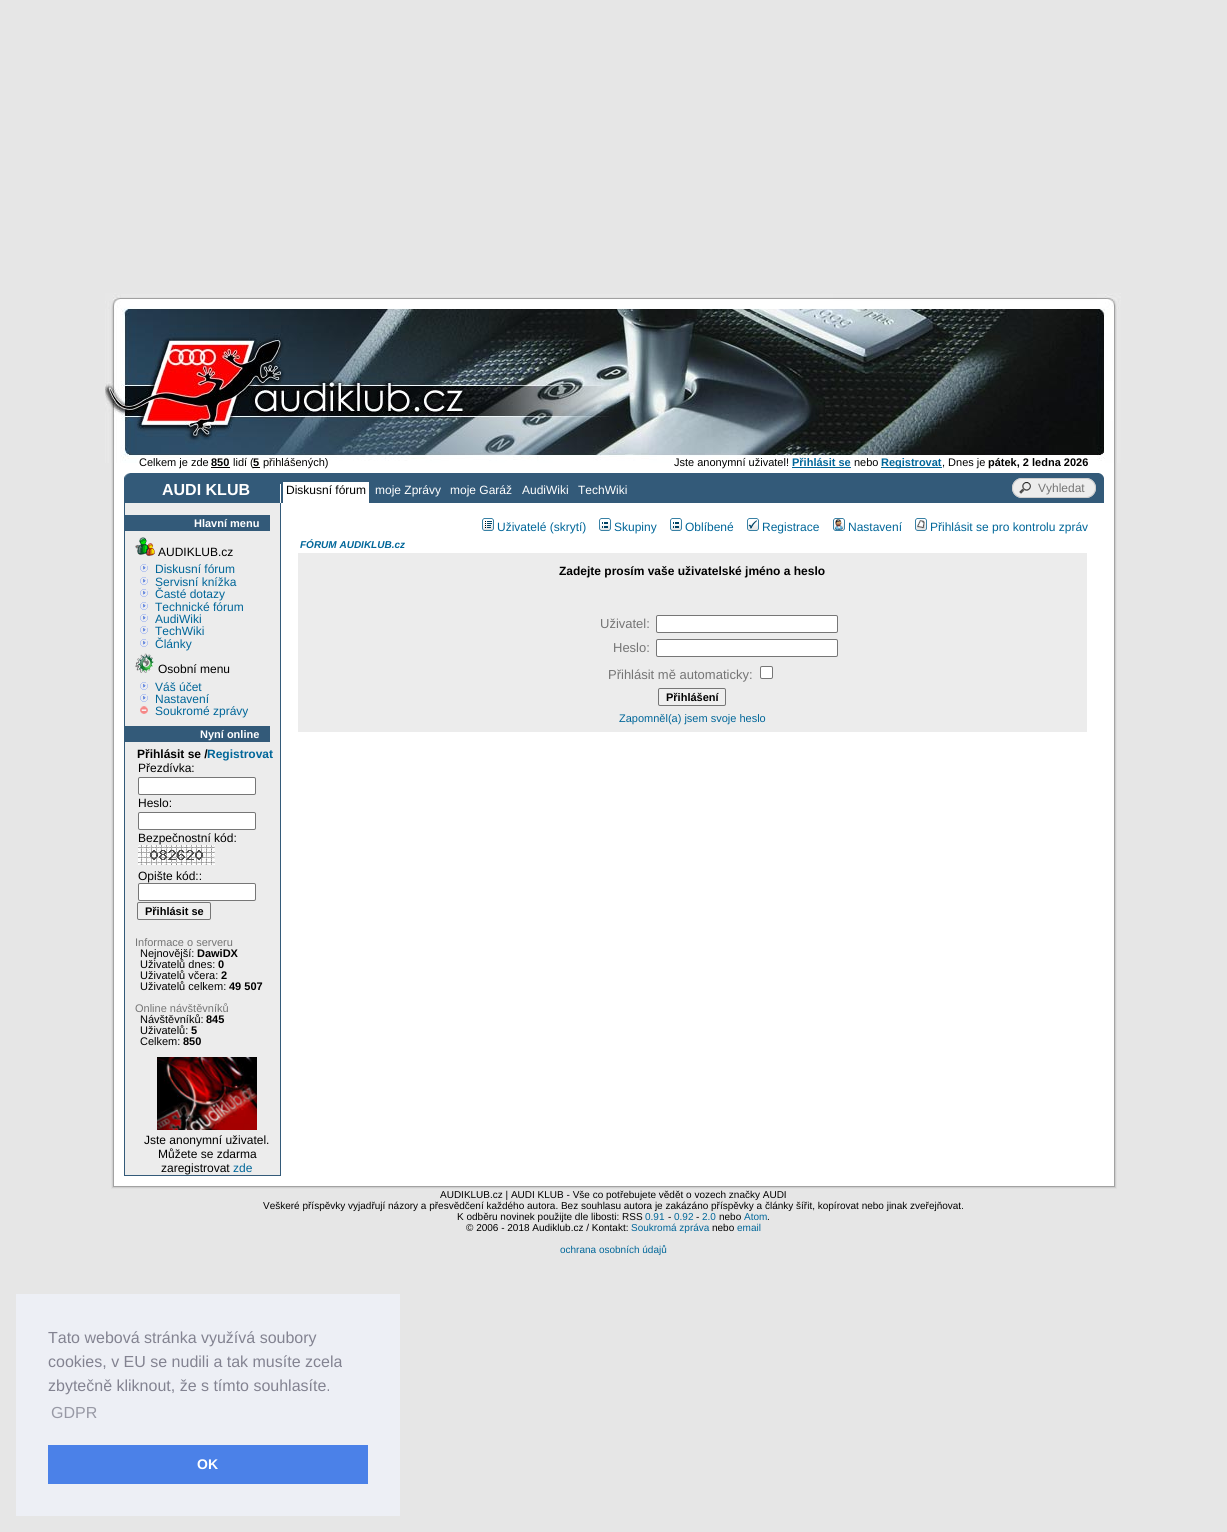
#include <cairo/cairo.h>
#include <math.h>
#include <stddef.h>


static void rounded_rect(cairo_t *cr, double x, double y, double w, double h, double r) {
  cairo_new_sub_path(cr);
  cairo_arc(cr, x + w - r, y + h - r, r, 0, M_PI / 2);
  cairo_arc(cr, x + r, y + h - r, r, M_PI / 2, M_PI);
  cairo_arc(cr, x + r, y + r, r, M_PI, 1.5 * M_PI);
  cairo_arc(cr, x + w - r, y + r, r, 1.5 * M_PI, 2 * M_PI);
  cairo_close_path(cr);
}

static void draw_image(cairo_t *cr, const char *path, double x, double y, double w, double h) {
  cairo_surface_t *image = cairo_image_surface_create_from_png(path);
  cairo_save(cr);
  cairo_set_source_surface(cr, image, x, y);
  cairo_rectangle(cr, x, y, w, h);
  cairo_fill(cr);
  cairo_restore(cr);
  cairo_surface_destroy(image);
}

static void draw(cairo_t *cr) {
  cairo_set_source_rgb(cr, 230 / 255.0, 230 / 255.0, 230 / 255.0);
  cairo_paint(cr);
  draw_image(cr, "images/1.png", 105, 293, 1016, 170);
  cairo_set_source_rgb(cr, 1, 1, 1);
  cairo_rectangle(cr, 114, 463, 1000, 723);
  cairo_fill(cr);
  cairo_set_source_rgb(cr, 0, 0, 0);
  cairo_rectangle(cr, 211, 467, 19, 1);
  cairo_fill(cr);
  cairo_rectangle(cr, 253, 467, 7, 1);
  cairo_fill(cr);
  cairo_set_source_rgb(cr, 0, 102 / 255.0, 153 / 255.0);
  cairo_rectangle(cr, 792, 467, 59, 1);
  cairo_fill(cr);
  cairo_rectangle(cr, 881, 467, 61, 1);
  cairo_fill(cr);
  cairo_set_source_rgb(cr, 223 / 255.0, 223 / 255.0, 223 / 255.0);
  cairo_rectangle(cr, 1116, 463, 1, 726);
  cairo_fill(cr);
  cairo_rectangle(cr, 111, 1188, 1006, 1);
  cairo_fill(cr);
  cairo_rectangle(cr, 111, 463, 1, 726);
  cairo_fill(cr);
  cairo_set_source_rgb(cr, 206 / 255.0, 206 / 255.0, 206 / 255.0);
  cairo_rectangle(cr, 1115, 463, 1, 725);
  cairo_fill(cr);
  cairo_rectangle(cr, 112, 1187, 1004, 1);
  cairo_fill(cr);
  cairo_rectangle(cr, 112, 463, 1, 725);
  cairo_fill(cr);
  cairo_set_source_rgb(cr, 162 / 255.0, 162 / 255.0, 162 / 255.0);
  cairo_rectangle(cr, 1114, 463, 1, 724);
  cairo_fill(cr);
  cairo_rectangle(cr, 113, 1186, 1002, 1);
  cairo_fill(cr);
  cairo_rectangle(cr, 113, 463, 1, 724);
  cairo_fill(cr);
  cairo_set_source_rgb(cr, 51 / 255.0, 90 / 255.0, 121 / 255.0);
  cairo_rectangle(cr, 124, 473, 980, 30);
  cairo_fill(cr);
  draw_image(cr, "images/2.png", 124, 473, 7, 5);
  cairo_set_source_rgb(cr, 1, 1, 1);
  cairo_rectangle(cr, 280, 484, 1, 19);
  cairo_fill(cr);
  cairo_rectangle(cr, 283, 482, 86, 21);
  cairo_fill(cr);
  draw_image(cr, "images/3.png", 1098, 473, 6, 5);
  cairo_set_source_rgb(cr, 237 / 255.0, 237 / 255.0, 237 / 255.0);
  rounded_rect(cr, 1012, 478, 84, 20, 10);
  cairo_fill(cr);
  draw_image(cr, "images/4.png", 1019, 482, 12, 12);
  rounded_rect(cr, 1012.5, 478.5, 83, 19, 9.5);
  cairo_set_source_rgb(cr, 204 / 255.0, 204 / 255.0, 204 / 255.0);
  cairo_set_line_width(cr, 1);
  cairo_stroke(cr);
  cairo_set_source_rgb(cr, 236 / 255.0, 236 / 255.0, 236 / 255.0);
  cairo_rectangle(cr, 125, 503, 155, 672);
  cairo_fill(cr);
  cairo_set_source_rgb(cr, 51 / 255.0, 90 / 255.0, 121 / 255.0);
  cairo_rectangle(cr, 280, 503, 1, 673);
  cairo_fill(cr);
  cairo_rectangle(cr, 124, 1175, 157, 1);
  cairo_fill(cr);
  cairo_rectangle(cr, 124, 503, 1, 673);
  cairo_fill(cr);
  cairo_rectangle(cr, 125, 515, 145, 16);
  cairo_fill(cr);
  draw_image(cr, "images/5.png", 135, 537, 20, 19);
  draw_image(cr, "images/6.png", 140, 564, 8, 8);
  draw_image(cr, "images/6.png", 140, 577, 8, 8);
  draw_image(cr, "images/6.png", 140, 589, 8, 8);
  draw_image(cr, "images/6.png", 140, 602, 8, 8);
  draw_image(cr, "images/6.png", 140, 614, 8, 8);
  draw_image(cr, "images/6.png", 140, 626, 8, 8);
  draw_image(cr, "images/6.png", 140, 639, 8, 8);
  draw_image(cr, "images/7.png", 135, 653, 19, 20);
  draw_image(cr, "images/6.png", 140, 682, 8, 8);
  draw_image(cr, "images/6.png", 140, 694, 8, 8);
  draw_image(cr, "images/8.png", 140, 706, 8, 8);
  cairo_rectangle(cr, 125, 726, 145, 16);
  cairo_fill(cr);
  cairo_set_source_rgb(cr, 1, 1, 1);
  rounded_rect(cr, 138.5, 777.5, 117, 17, 1.5);
  cairo_fill_preserve(cr);
  cairo_set_source_rgb(cr, 118 / 255.0, 118 / 255.0, 118 / 255.0);
  cairo_stroke(cr);
  cairo_set_source_rgb(cr, 1, 1, 1);
  rounded_rect(cr, 138.5, 812.5, 117, 17, 1.5);
  cairo_fill_preserve(cr);
  cairo_set_source_rgb(cr, 118 / 255.0, 118 / 255.0, 118 / 255.0);
  cairo_stroke(cr);
  draw_image(cr, "images/9.png", 138, 845, 77, 20);
  cairo_set_source_rgb(cr, 1, 1, 1);
  rounded_rect(cr, 138.5, 883.5, 117, 17, 1.5);
  cairo_fill_preserve(cr);
  cairo_set_source_rgb(cr, 118 / 255.0, 118 / 255.0, 118 / 255.0);
  cairo_stroke(cr);
  cairo_set_source_rgb(cr, 239 / 255.0, 239 / 255.0, 239 / 255.0);
  rounded_rect(cr, 137.5, 902.5, 73, 17, 1.5);
  cairo_fill_preserve(cr);
  cairo_set_source_rgb(cr, 118 / 255.0, 118 / 255.0, 118 / 255.0);
  cairo_stroke(cr);
  draw_image(cr, "images/10.png", 157, 1057, 100, 73);
  draw_image(cr, "images/11.png", 482, 518, 12, 13);
  draw_image(cr, "images/12.png", 599, 518, 12, 13);
  draw_image(cr, "images/12.png", 670, 518, 12, 13);
  draw_image(cr, "images/13.png", 747, 518, 12, 13);
  draw_image(cr, "images/14.png", 833, 518, 12, 13);
  draw_image(cr, "images/15.png", 915, 518, 12, 13);
  cairo_set_source_rgb(cr, 236 / 255.0, 236 / 255.0, 236 / 255.0);
  cairo_rectangle(cr, 298, 553, 789, 179);
  cairo_fill(cr);
  cairo_set_source_rgb(cr, 1, 1, 1);
  rounded_rect(cr, 656.5, 615.5, 181, 17, 1.5);
  cairo_fill_preserve(cr);
  cairo_set_source_rgb(cr, 118 / 255.0, 118 / 255.0, 118 / 255.0);
  cairo_stroke(cr);
  cairo_set_source_rgb(cr, 1, 1, 1);
  rounded_rect(cr, 656.5, 639.5, 181, 17, 1.5);
  cairo_fill_preserve(cr);
  cairo_set_source_rgb(cr, 118 / 255.0, 118 / 255.0, 118 / 255.0);
  cairo_stroke(cr);
  cairo_set_source_rgb(cr, 1, 1, 1);
  rounded_rect(cr, 760.5, 666.5, 12, 12, 1.5);
  cairo_fill_preserve(cr);
  cairo_set_source_rgb(cr, 118 / 255.0, 118 / 255.0, 118 / 255.0);
  cairo_stroke(cr);
  cairo_set_source_rgb(cr, 239 / 255.0, 239 / 255.0, 239 / 255.0);
  rounded_rect(cr, 658.5, 688.5, 67, 17, 1.5);
  cairo_fill_preserve(cr);
  cairo_set_source_rgb(cr, 118 / 255.0, 118 / 255.0, 118 / 255.0);
  cairo_stroke(cr);
  cairo_set_source_rgb(cr, 237 / 255.0, 239 / 255.0, 245 / 255.0);
  cairo_rectangle(cr, 16, 1294, 384, 222);
  cairo_fill(cr);
  cairo_set_source_rgb(cr, 75 / 255.0, 129 / 255.0, 232 / 255.0);
  cairo_rectangle(cr, 48, 1445, 320, 39);
  cairo_fill(cr);
  cairo_select_font_face(cr, "Liberation Sans", CAIRO_FONT_SLANT_NORMAL, CAIRO_FONT_WEIGHT_NORMAL);
  cairo_set_font_size(cr, 11);
  cairo_set_source_rgb(cr, 0, 0, 0);
  cairo_move_to(cr, 139, 466);
  cairo_show_text(cr, "Celkem je zde");
  cairo_select_font_face(cr, "Liberation Sans", CAIRO_FONT_SLANT_NORMAL, CAIRO_FONT_WEIGHT_BOLD);
  cairo_move_to(cr, 211, 466);
  cairo_show_text(cr, "850");
  cairo_select_font_face(cr, "Liberation Sans", CAIRO_FONT_SLANT_NORMAL, CAIRO_FONT_WEIGHT_NORMAL);
  cairo_move_to(cr, 233, 466);
  cairo_show_text(cr, "lidí (");
  cairo_select_font_face(cr, "Liberation Sans", CAIRO_FONT_SLANT_NORMAL, CAIRO_FONT_WEIGHT_BOLD);
  cairo_move_to(cr, 253, 466);
  cairo_show_text(cr, "5");
  cairo_select_font_face(cr, "Liberation Sans", CAIRO_FONT_SLANT_NORMAL, CAIRO_FONT_WEIGHT_NORMAL);
  cairo_move_to(cr, 263, 466);
  cairo_show_text(cr, "přihlášených)");
  cairo_move_to(cr, 674, 466);
  cairo_show_text(cr, "Jste anonymní uživatel!");
  cairo_select_font_face(cr, "Liberation Sans", CAIRO_FONT_SLANT_NORMAL, CAIRO_FONT_WEIGHT_BOLD);
  cairo_set_source_rgb(cr, 0, 102 / 255.0, 153 / 255.0);
  cairo_move_to(cr, 792, 466);
  cairo_show_text(cr, "Přihlásit se");
  cairo_select_font_face(cr, "Liberation Sans", CAIRO_FONT_SLANT_NORMAL, CAIRO_FONT_WEIGHT_NORMAL);
  cairo_set_source_rgb(cr, 0, 0, 0);
  cairo_move_to(cr, 854, 466);
  cairo_show_text(cr, "nebo");
  cairo_select_font_face(cr, "Liberation Sans", CAIRO_FONT_SLANT_NORMAL, CAIRO_FONT_WEIGHT_BOLD);
  cairo_set_source_rgb(cr, 0, 102 / 255.0, 153 / 255.0);
  cairo_move_to(cr, 881, 466);
  cairo_show_text(cr, "Registrovat");
  cairo_select_font_face(cr, "Liberation Sans", CAIRO_FONT_SLANT_NORMAL, CAIRO_FONT_WEIGHT_NORMAL);
  cairo_set_source_rgb(cr, 0, 0, 0);
  cairo_move_to(cr, 942, 466);
  cairo_show_text(cr, ", Dnes je");
  cairo_select_font_face(cr, "Liberation Sans", CAIRO_FONT_SLANT_NORMAL, CAIRO_FONT_WEIGHT_BOLD);
  cairo_move_to(cr, 988, 466);
  cairo_show_text(cr, "pátek, 2 ledna 2026");
  cairo_set_font_size(cr, 16);
  cairo_set_source_rgb(cr, 1, 1, 1);
  cairo_move_to(cr, 162, 495);
  cairo_show_text(cr, "AUDI KLUB");
  cairo_select_font_face(cr, "Liberation Sans", CAIRO_FONT_SLANT_NORMAL, CAIRO_FONT_WEIGHT_NORMAL);
  cairo_set_font_size(cr, 12);
  cairo_set_source_rgb(cr, 0, 0, 0);
  cairo_move_to(cr, 286, 494);
  cairo_show_text(cr, "Diskusní fórum");
  cairo_set_source_rgb(cr, 1, 1, 1);
  cairo_move_to(cr, 375, 494);
  cairo_show_text(cr, "moje Zprávy");
  cairo_move_to(cr, 450, 494);
  cairo_show_text(cr, "moje Garáž");
  cairo_move_to(cr, 522, 494);
  cairo_show_text(cr, "AudiWiki");
  cairo_move_to(cr, 578, 494);
  cairo_show_text(cr, "TechWiki");
  cairo_set_source_rgb(cr, 117 / 255.0, 117 / 255.0, 117 / 255.0);
  cairo_move_to(cr, 1038, 492);
  cairo_show_text(cr, "Vyhledat");
  cairo_select_font_face(cr, "Liberation Sans", CAIRO_FONT_SLANT_NORMAL, CAIRO_FONT_WEIGHT_BOLD);
  cairo_set_font_size(cr, 11);
  cairo_set_source_rgb(cr, 1, 1, 1);
  cairo_move_to(cr, 194, 527);
  cairo_show_text(cr, "Hlavní menu");
  cairo_select_font_face(cr, "Liberation Sans", CAIRO_FONT_SLANT_NORMAL, CAIRO_FONT_WEIGHT_NORMAL);
  cairo_set_font_size(cr, 12);
  cairo_set_source_rgb(cr, 0, 0, 0);
  cairo_move_to(cr, 158, 556);
  cairo_show_text(cr, "AUDIKLUB.cz");
  cairo_set_source_rgb(cr, 0, 102 / 255.0, 153 / 255.0);
  cairo_move_to(cr, 155, 573);
  cairo_show_text(cr, "Diskusní fórum");
  cairo_move_to(cr, 155, 586);
  cairo_show_text(cr, "Servisní knížka");
  cairo_move_to(cr, 155, 598);
  cairo_show_text(cr, "Časté dotazy");
  cairo_move_to(cr, 155, 611);
  cairo_show_text(cr, "Technické fórum");
  cairo_move_to(cr, 155, 623);
  cairo_show_text(cr, "AudiWiki");
  cairo_move_to(cr, 155, 635);
  cairo_show_text(cr, "TechWiki");
  cairo_move_to(cr, 155, 648);
  cairo_show_text(cr, "Články");
  cairo_set_source_rgb(cr, 0, 0, 0);
  cairo_move_to(cr, 158, 673);
  cairo_show_text(cr, "Osobní menu");
  cairo_set_source_rgb(cr, 0, 102 / 255.0, 153 / 255.0);
  cairo_move_to(cr, 155, 691);
  cairo_show_text(cr, "Váš účet");
  cairo_move_to(cr, 155, 703);
  cairo_show_text(cr, "Nastavení");
  cairo_move_to(cr, 155, 715);
  cairo_show_text(cr, "Soukromé zprávy");
  cairo_select_font_face(cr, "Liberation Sans", CAIRO_FONT_SLANT_NORMAL, CAIRO_FONT_WEIGHT_BOLD);
  cairo_set_font_size(cr, 11);
  cairo_set_source_rgb(cr, 1, 1, 1);
  cairo_move_to(cr, 200, 738);
  cairo_show_text(cr, "Nyní online");
  cairo_set_font_size(cr, 12);
  cairo_set_source_rgb(cr, 0, 0, 0);
  cairo_move_to(cr, 137, 758);
  cairo_show_text(cr, "Přihlásit se /");
  cairo_set_source_rgb(cr, 0, 102 / 255.0, 153 / 255.0);
  cairo_move_to(cr, 207, 758);
  cairo_show_text(cr, "Registrovat");
  cairo_select_font_face(cr, "Liberation Sans", CAIRO_FONT_SLANT_NORMAL, CAIRO_FONT_WEIGHT_NORMAL);
  cairo_set_source_rgb(cr, 0, 0, 0);
  cairo_move_to(cr, 138, 772);
  cairo_show_text(cr, "Přezdívka:");
  cairo_move_to(cr, 138, 807);
  cairo_show_text(cr, "Heslo:");
  cairo_move_to(cr, 138, 842);
  cairo_show_text(cr, "Bezpečnostní kód:");
  cairo_move_to(cr, 138, 880);
  cairo_show_text(cr, "Opište kód::");
  cairo_select_font_face(cr, "Liberation Sans", CAIRO_FONT_SLANT_NORMAL, CAIRO_FONT_WEIGHT_BOLD);
  cairo_set_font_size(cr, 11);
  cairo_move_to(cr, 145, 915);
  cairo_show_text(cr, "Přihlásit se");
  cairo_select_font_face(cr, "Liberation Sans", CAIRO_FONT_SLANT_NORMAL, CAIRO_FONT_WEIGHT_NORMAL);
  cairo_set_source_rgb(cr, 117 / 255.0, 117 / 255.0, 117 / 255.0);
  cairo_move_to(cr, 135, 946);
  cairo_show_text(cr, "Informace o serveru");
  cairo_set_source_rgb(cr, 0, 0, 0);
  cairo_move_to(cr, 140, 957);
  cairo_show_text(cr, "Nejnovější:");
  cairo_select_font_face(cr, "Liberation Sans", CAIRO_FONT_SLANT_NORMAL, CAIRO_FONT_WEIGHT_BOLD);
  cairo_move_to(cr, 197, 957);
  cairo_show_text(cr, "DawiDX");
  cairo_select_font_face(cr, "Liberation Sans", CAIRO_FONT_SLANT_NORMAL, CAIRO_FONT_WEIGHT_NORMAL);
  cairo_move_to(cr, 140, 968);
  cairo_show_text(cr, "Uživatelů dnes:");
  cairo_select_font_face(cr, "Liberation Sans", CAIRO_FONT_SLANT_NORMAL, CAIRO_FONT_WEIGHT_BOLD);
  cairo_move_to(cr, 218, 968);
  cairo_show_text(cr, "0");
  cairo_select_font_face(cr, "Liberation Sans", CAIRO_FONT_SLANT_NORMAL, CAIRO_FONT_WEIGHT_NORMAL);
  cairo_move_to(cr, 140, 979);
  cairo_show_text(cr, "Uživatelů včera:");
  cairo_select_font_face(cr, "Liberation Sans", CAIRO_FONT_SLANT_NORMAL, CAIRO_FONT_WEIGHT_BOLD);
  cairo_move_to(cr, 221, 979);
  cairo_show_text(cr, "2");
  cairo_select_font_face(cr, "Liberation Sans", CAIRO_FONT_SLANT_NORMAL, CAIRO_FONT_WEIGHT_NORMAL);
  cairo_move_to(cr, 140, 990);
  cairo_show_text(cr, "Uživatelů celkem:");
  cairo_select_font_face(cr, "Liberation Sans", CAIRO_FONT_SLANT_NORMAL, CAIRO_FONT_WEIGHT_BOLD);
  cairo_move_to(cr, 229, 990);
  cairo_show_text(cr, "49 507");
  cairo_select_font_face(cr, "Liberation Sans", CAIRO_FONT_SLANT_NORMAL, CAIRO_FONT_WEIGHT_NORMAL);
  cairo_set_source_rgb(cr, 117 / 255.0, 117 / 255.0, 117 / 255.0);
  cairo_move_to(cr, 135, 1012);
  cairo_show_text(cr, "Online návštěvníků");
  cairo_set_source_rgb(cr, 0, 0, 0);
  cairo_move_to(cr, 140, 1023);
  cairo_show_text(cr, "Návštěvníků:");
  cairo_select_font_face(cr, "Liberation Sans", CAIRO_FONT_SLANT_NORMAL, CAIRO_FONT_WEIGHT_BOLD);
  cairo_move_to(cr, 206, 1023);
  cairo_show_text(cr, "845");
  cairo_select_font_face(cr, "Liberation Sans", CAIRO_FONT_SLANT_NORMAL, CAIRO_FONT_WEIGHT_NORMAL);
  cairo_move_to(cr, 140, 1034);
  cairo_show_text(cr, "Uživatelů:");
  cairo_select_font_face(cr, "Liberation Sans", CAIRO_FONT_SLANT_NORMAL, CAIRO_FONT_WEIGHT_BOLD);
  cairo_move_to(cr, 191, 1034);
  cairo_show_text(cr, "5");
  cairo_select_font_face(cr, "Liberation Sans", CAIRO_FONT_SLANT_NORMAL, CAIRO_FONT_WEIGHT_NORMAL);
  cairo_move_to(cr, 140, 1045);
  cairo_show_text(cr, "Celkem:");
  cairo_select_font_face(cr, "Liberation Sans", CAIRO_FONT_SLANT_NORMAL, CAIRO_FONT_WEIGHT_BOLD);
  cairo_move_to(cr, 183, 1045);
  cairo_show_text(cr, "850");
  cairo_select_font_face(cr, "Liberation Sans", CAIRO_FONT_SLANT_NORMAL, CAIRO_FONT_WEIGHT_NORMAL);
  cairo_set_font_size(cr, 12);
  cairo_move_to(cr, 144, 1144);
  cairo_show_text(cr, "Jste anonymní uživatel.");
  cairo_move_to(cr, 158, 1158);
  cairo_show_text(cr, "Můžete se zdarma");
  cairo_move_to(cr, 161, 1172);
  cairo_show_text(cr, "zaregistrovat");
  cairo_set_source_rgb(cr, 0, 102 / 255.0, 153 / 255.0);
  cairo_move_to(cr, 233, 1172);
  cairo_show_text(cr, "zde");
  cairo_move_to(cr, 497, 531);
  cairo_show_text(cr, "Uživatelé (skrytí)");
  cairo_move_to(cr, 614, 531);
  cairo_show_text(cr, "Skupiny");
  cairo_move_to(cr, 685, 531);
  cairo_show_text(cr, "Oblíbené");
  cairo_move_to(cr, 762, 531);
  cairo_show_text(cr, "Registrace");
  cairo_move_to(cr, 848, 531);
  cairo_show_text(cr, "Nastavení");
  cairo_move_to(cr, 930, 531);
  cairo_show_text(cr, "Přihlásit se pro kontrolu zpráv");
  cairo_select_font_face(cr, "Liberation Sans", CAIRO_FONT_SLANT_ITALIC, CAIRO_FONT_WEIGHT_BOLD);
  cairo_set_font_size(cr, 10);
  cairo_move_to(cr, 300, 548);
  cairo_show_text(cr, "FÓRUM AUDIKLUB.cz");
  cairo_select_font_face(cr, "Liberation Sans", CAIRO_FONT_SLANT_NORMAL, CAIRO_FONT_WEIGHT_BOLD);
  cairo_set_font_size(cr, 12);
  cairo_set_source_rgb(cr, 0, 0, 0);
  cairo_move_to(cr, 559, 575);
  cairo_show_text(cr, "Zadejte prosím vaše uživatelské jméno a heslo");
  cairo_select_font_face(cr, "Liberation Sans", CAIRO_FONT_SLANT_NORMAL, CAIRO_FONT_WEIGHT_NORMAL);
  cairo_set_font_size(cr, 13);
  cairo_set_source_rgb(cr, 117 / 255.0, 117 / 255.0, 117 / 255.0);
  cairo_move_to(cr, 600, 628);
  cairo_show_text(cr, "Uživatel:");
  cairo_move_to(cr, 613, 652);
  cairo_show_text(cr, "Heslo:");
  cairo_move_to(cr, 608, 679);
  cairo_show_text(cr, "Přihlásit mě automaticky:");
  cairo_select_font_face(cr, "Liberation Sans", CAIRO_FONT_SLANT_NORMAL, CAIRO_FONT_WEIGHT_BOLD);
  cairo_set_font_size(cr, 11);
  cairo_set_source_rgb(cr, 0, 0, 0);
  cairo_move_to(cr, 666, 701);
  cairo_show_text(cr, "Přihlášení");
  cairo_select_font_face(cr, "Liberation Sans", CAIRO_FONT_SLANT_NORMAL, CAIRO_FONT_WEIGHT_NORMAL);
  cairo_set_source_rgb(cr, 0, 102 / 255.0, 153 / 255.0);
  cairo_move_to(cr, 619, 722);
  cairo_show_text(cr, "Zapomněl(a) jsem svoje heslo");
  cairo_set_font_size(cr, 10);
  cairo_set_source_rgb(cr, 0, 0, 0);
  cairo_move_to(cr, 440, 1198);
  cairo_show_text(cr, "AUDIKLUB.cz | AUDI KLUB - Vše co potřebujete vědět o vozech značky AUDI");
  cairo_move_to(cr, 263, 1209);
  cairo_show_text(cr, "Veškeré příspěvky vyjadřují názory a přesvědčení každého autora. Bez souhlasu autora je zakázáno příspěvky a články šířit, kopírovat nebo jinak zveřejňovat.");
  cairo_move_to(cr, 457, 1220);
  cairo_show_text(cr, "K odběru novinek použijte dle libosti: RSS");
  cairo_set_source_rgb(cr, 0, 102 / 255.0, 153 / 255.0);
  cairo_move_to(cr, 645, 1220);
  cairo_show_text(cr, "0.91");
  cairo_set_source_rgb(cr, 0, 0, 0);
  cairo_move_to(cr, 668, 1220);
  cairo_show_text(cr, "-");
  cairo_set_source_rgb(cr, 0, 102 / 255.0, 153 / 255.0);
  cairo_move_to(cr, 674, 1220);
  cairo_show_text(cr, "0.92");
  cairo_set_source_rgb(cr, 0, 0, 0);
  cairo_move_to(cr, 696, 1220);
  cairo_show_text(cr, "-");
  cairo_set_source_rgb(cr, 0, 102 / 255.0, 153 / 255.0);
  cairo_move_to(cr, 702, 1220);
  cairo_show_text(cr, "2.0");
  cairo_set_source_rgb(cr, 0, 0, 0);
  cairo_move_to(cr, 719, 1220);
  cairo_show_text(cr, "nebo");
  cairo_set_source_rgb(cr, 0, 102 / 255.0, 153 / 255.0);
  cairo_move_to(cr, 744, 1220);
  cairo_show_text(cr, "Atom");
  cairo_set_source_rgb(cr, 0, 0, 0);
  cairo_move_to(cr, 767, 1220);
  cairo_show_text(cr, ".");
  cairo_move_to(cr, 466, 1231);
  cairo_show_text(cr, "© 2006 - 2018 Audiklub.cz / Kontakt:");
  cairo_set_source_rgb(cr, 0, 102 / 255.0, 153 / 255.0);
  cairo_move_to(cr, 631, 1231);
  cairo_show_text(cr, "Soukromá zpráva");
  cairo_set_source_rgb(cr, 0, 0, 0);
  cairo_move_to(cr, 712, 1231);
  cairo_show_text(cr, "nebo");
  cairo_set_source_rgb(cr, 0, 102 / 255.0, 153 / 255.0);
  cairo_move_to(cr, 737, 1231);
  cairo_show_text(cr, "email");
  cairo_move_to(cr, 560, 1253);
  cairo_show_text(cr, "ochrana osobních údajů");
  cairo_set_font_size(cr, 16);
  cairo_set_source_rgb(cr, 131 / 255.0, 131 / 255.0, 145 / 255.0);
  cairo_move_to(cr, 48, 1343);
  cairo_show_text(cr, "Tato webová stránka využívá soubory");
  cairo_move_to(cr, 48, 1367);
  cairo_show_text(cr, "cookies, v EU se nudili a tak musíte zcela");
  cairo_move_to(cr, 48, 1391);
  cairo_show_text(cr, "zbytečně kliknout, že s tímto souhlasíte.");
  cairo_set_source_rgb(cr, 152 / 255.0, 153 / 255.0, 165 / 255.0);
  cairo_move_to(cr, 51, 1418);
  cairo_show_text(cr, "GDPR");
  cairo_select_font_face(cr, "Liberation Sans", CAIRO_FONT_SLANT_NORMAL, CAIRO_FONT_WEIGHT_BOLD);
  cairo_set_font_size(cr, 14);
  cairo_set_source_rgb(cr, 1, 1, 1);
  cairo_move_to(cr, 197, 1469);
  cairo_show_text(cr, "OK");
}

int main(void) {
  cairo_surface_t *surface = cairo_image_surface_create(CAIRO_FORMAT_RGB24, 1227, 1532);
  cairo_t *cr = cairo_create(surface);
  cairo_font_options_t *options = cairo_font_options_create();
  cairo_font_options_set_hint_metrics(options, CAIRO_HINT_METRICS_OFF);
  cairo_font_options_set_hint_style(options, CAIRO_HINT_STYLE_NONE);
  cairo_set_font_options(cr, options);
  cairo_set_miter_limit(cr, 4);
  draw(cr);
  cairo_surface_write_to_png(surface, "out.png");
  cairo_font_options_destroy(options);
  cairo_destroy(cr);
  cairo_surface_destroy(surface);
  return 0;
}
